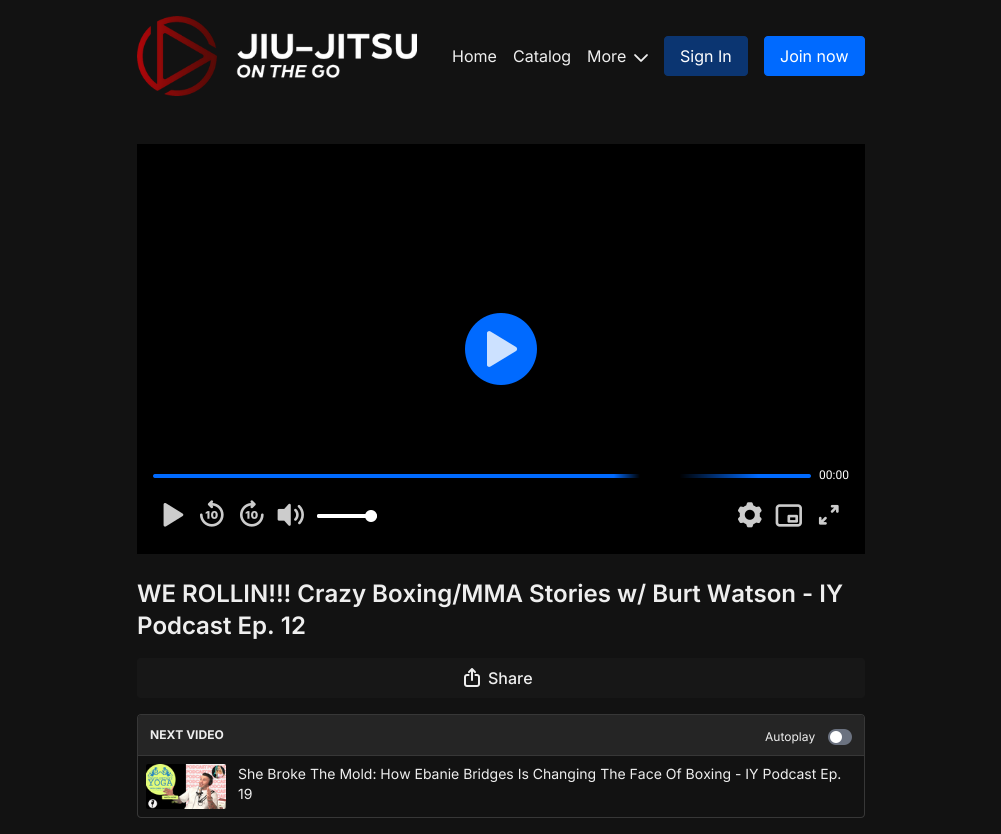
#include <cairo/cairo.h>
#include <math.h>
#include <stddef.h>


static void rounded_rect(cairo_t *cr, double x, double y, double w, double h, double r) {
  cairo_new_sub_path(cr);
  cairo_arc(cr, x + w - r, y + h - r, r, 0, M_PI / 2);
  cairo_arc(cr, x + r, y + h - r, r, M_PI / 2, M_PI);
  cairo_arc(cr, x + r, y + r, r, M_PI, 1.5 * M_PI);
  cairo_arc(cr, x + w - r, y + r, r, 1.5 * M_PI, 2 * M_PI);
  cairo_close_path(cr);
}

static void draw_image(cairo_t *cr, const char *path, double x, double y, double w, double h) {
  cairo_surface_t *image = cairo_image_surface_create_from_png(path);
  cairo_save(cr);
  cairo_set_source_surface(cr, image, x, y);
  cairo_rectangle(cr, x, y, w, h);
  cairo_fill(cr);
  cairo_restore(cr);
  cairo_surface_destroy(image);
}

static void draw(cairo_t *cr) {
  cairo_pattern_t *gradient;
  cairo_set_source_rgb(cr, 18 / 255.0, 18 / 255.0, 18 / 255.0);
  cairo_paint(cr);
  draw_image(cr, "images/1.png", 137, 16, 280, 80);
  draw_image(cr, "images/2.png", 634, 54, 14, 8);
  cairo_set_source_rgb(cr, 11 / 255.0, 53 / 255.0, 113 / 255.0);
  rounded_rect(cr, 664.5, 36.5, 83, 39, 3.5);
  cairo_fill_preserve(cr);
  cairo_set_line_width(cr, 1);
  cairo_stroke(cr);
  cairo_set_source_rgb(cr, 0, 106 / 255.0, 1);
  rounded_rect(cr, 764.5, 36.5, 100, 39, 3.5);
  cairo_fill_preserve(cr);
  cairo_stroke(cr);
  cairo_set_source_rgb(cr, 0, 0, 0);
  cairo_rectangle(cr, 137, 144, 728, 410);
  cairo_fill(cr);
  cairo_set_source_rgb(cr, 0, 106 / 255.0, 1);
  cairo_arc(cr, 501, 349, 36, 0, 2 * M_PI);
  cairo_fill(cr);
  cairo_set_source_rgb(cr, 204 / 255.0, 225 / 255.0, 1);
  cairo_new_path(cr);
  cairo_move_to(cr, 490.5, 331.5);
  cairo_curve_to(cr, 489, 330.5, 487, 331.5, 487, 333);
  cairo_line_to(cr, 487, 365);
  cairo_curve_to(cr, 487, 366.5, 489, 367.5, 490.5, 366.5);
  cairo_line_to(cr, 516, 351);
  cairo_curve_to(cr, 517.5, 350, 517.5, 348, 516, 347);
  cairo_close_path(cr);
  cairo_fill(cr);
  gradient = cairo_pattern_create_linear(153, 478, 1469, 478);
  cairo_pattern_add_color_stop_rgba(gradient, 0.35, 0, 106 / 255.0, 1, 1);
  cairo_pattern_add_color_stop_rgba(gradient, 0.37, 0, 0, 0, 1);
  cairo_pattern_add_color_stop_rgba(gradient, 0.4, 0, 0, 0, 1);
  cairo_pattern_add_color_stop_rgba(gradient, 0.46, 0, 106 / 255.0, 1, 1);
  cairo_pattern_add_color_stop_rgba(gradient, 1, 0, 106 / 255.0, 1, 1);
  cairo_set_source(cr, gradient);
  cairo_pattern_destroy(gradient);
  rounded_rect(cr, 153, 474, 658, 4, 2);
  cairo_fill(cr);
  draw_image(cr, "images/3.png", 163, 503, 21, 24);
  draw_image(cr, "images/4.png", 200, 500, 24, 27);
  draw_image(cr, "images/5.png", 240, 500, 24, 27);
  draw_image(cr, "images/6.png", 277, 503, 27, 23);
  cairo_set_source_rgb(cr, 1, 1, 1);
  rounded_rect(cr, 317, 514, 60, 4, 1.5);
  cairo_fill(cr);
  cairo_arc(cr, 371, 516, 6, 0, 2 * M_PI);
  cairo_fill(cr);
  draw_image(cr, "images/7.png", 738, 502, 24, 26);
  draw_image(cr, "images/8.png", 775, 504, 27, 23);
  draw_image(cr, "images/9.png", 818, 504, 21, 21);
  cairo_set_source_rgb(cr, 23 / 255.0, 23 / 255.0, 23 / 255.0);
  rounded_rect(cr, 137, 658, 728, 40, 4);
  cairo_fill(cr);
  draw_image(cr, "images/10.png", 464, 668, 16, 19);
  rounded_rect(cr, 137.5, 714.5, 727, 103, 3.5);
  cairo_set_source_rgb(cr, 55 / 255.0, 55 / 255.0, 55 / 255.0);
  cairo_stroke(cr);
  cairo_set_source_rgb(cr, 37 / 255.0, 37 / 255.0, 37 / 255.0);
  cairo_new_path(cr);
  cairo_move_to(cr, 141, 715);
  cairo_line_to(cr, 861, 715);
  cairo_curve_to(cr, 862.5, 715, 864, 716.5, 864, 718);
  cairo_line_to(cr, 864, 755);
  cairo_line_to(cr, 138, 755);
  cairo_line_to(cr, 138, 718);
  cairo_curve_to(cr, 138, 716.5, 139.5, 715, 141, 715);
  cairo_close_path(cr);
  cairo_fill(cr);
  cairo_set_source_rgb(cr, 55 / 255.0, 55 / 255.0, 55 / 255.0);
  cairo_rectangle(cr, 138, 755, 726, 1);
  cairo_fill(cr);
  cairo_set_source_rgb(cr, 107 / 255.0, 114 / 255.0, 128 / 255.0);
  rounded_rect(cr, 828, 729, 24, 16, 8);
  cairo_fill(cr);
  cairo_set_source_rgb(cr, 1, 1, 1);
  cairo_arc(cr, 836, 737, 6, 0, 2 * M_PI);
  cairo_fill(cr);
  draw_image(cr, "images/11.png", 146, 764, 80, 45);
  cairo_select_font_face(cr, "Inter", CAIRO_FONT_SLANT_NORMAL, CAIRO_FONT_WEIGHT_NORMAL);
  cairo_set_font_size(cr, 16);
  cairo_set_source_rgb(cr, 238 / 255.0, 238 / 255.0, 238 / 255.0);
  cairo_move_to(cr, 452, 62);
  cairo_show_text(cr, "Home");
  cairo_move_to(cr, 513, 62);
  cairo_show_text(cr, "Catalog");
  cairo_move_to(cr, 587, 62);
  cairo_show_text(cr, "More");
  cairo_set_source_rgb(cr, 1, 1, 1);
  cairo_move_to(cr, 680, 62);
  cairo_show_text(cr, "Sign In");
  cairo_move_to(cr, 780, 62);
  cairo_show_text(cr, "Join now");
  cairo_select_font_face(cr, "Roboto", CAIRO_FONT_SLANT_NORMAL, CAIRO_FONT_WEIGHT_NORMAL);
  cairo_set_font_size(cr, 12);
  cairo_move_to(cr, 819, 479);
  cairo_show_text(cr, "00:00");
  cairo_select_font_face(cr, "Inter SemiBold", CAIRO_FONT_SLANT_NORMAL, CAIRO_FONT_WEIGHT_NORMAL);
  cairo_set_font_size(cr, 24);
  cairo_set_source_rgb(cr, 238 / 255.0, 238 / 255.0, 238 / 255.0);
  cairo_move_to(cr, 137, 602);
  cairo_show_text(cr, "WE ROLLIN!!! Crazy Boxing/MMA Stories w/ Burt Watson - IY");
  cairo_move_to(cr, 137, 634);
  cairo_show_text(cr, "Podcast Ep. 12");
  cairo_select_font_face(cr, "Inter Medium", CAIRO_FONT_SLANT_NORMAL, CAIRO_FONT_WEIGHT_NORMAL);
  cairo_set_font_size(cr, 16);
  cairo_move_to(cr, 488, 684);
  cairo_show_text(cr, "Share");
  cairo_select_font_face(cr, "Inter", CAIRO_FONT_SLANT_NORMAL, CAIRO_FONT_WEIGHT_BOLD);
  cairo_set_font_size(cr, 12);
  cairo_move_to(cr, 150, 739);
  cairo_show_text(cr, "NEXT VIDEO");
  cairo_select_font_face(cr, "Inter", CAIRO_FONT_SLANT_NORMAL, CAIRO_FONT_WEIGHT_NORMAL);
  cairo_move_to(cr, 765, 741);
  cairo_show_text(cr, "Autoplay");
  cairo_set_font_size(cr, 14);
  cairo_move_to(cr, 238, 779);
  cairo_show_text(cr, "She Broke The Mold: How Ebanie Bridges Is Changing The Face Of Boxing - IY Podcast Ep.");
  cairo_move_to(cr, 238, 799);
  cairo_show_text(cr, "19");
}

int main(void) {
  cairo_surface_t *surface = cairo_image_surface_create(CAIRO_FORMAT_RGB24, 1001, 834);
  cairo_t *cr = cairo_create(surface);
  cairo_font_options_t *options = cairo_font_options_create();
  cairo_font_options_set_hint_metrics(options, CAIRO_HINT_METRICS_OFF);
  cairo_font_options_set_hint_style(options, CAIRO_HINT_STYLE_NONE);
  cairo_set_font_options(cr, options);
  cairo_set_miter_limit(cr, 4);
  draw(cr);
  cairo_surface_write_to_png(surface, "out.png");
  cairo_font_options_destroy(options);
  cairo_destroy(cr);
  cairo_surface_destroy(surface);
  return 0;
}
